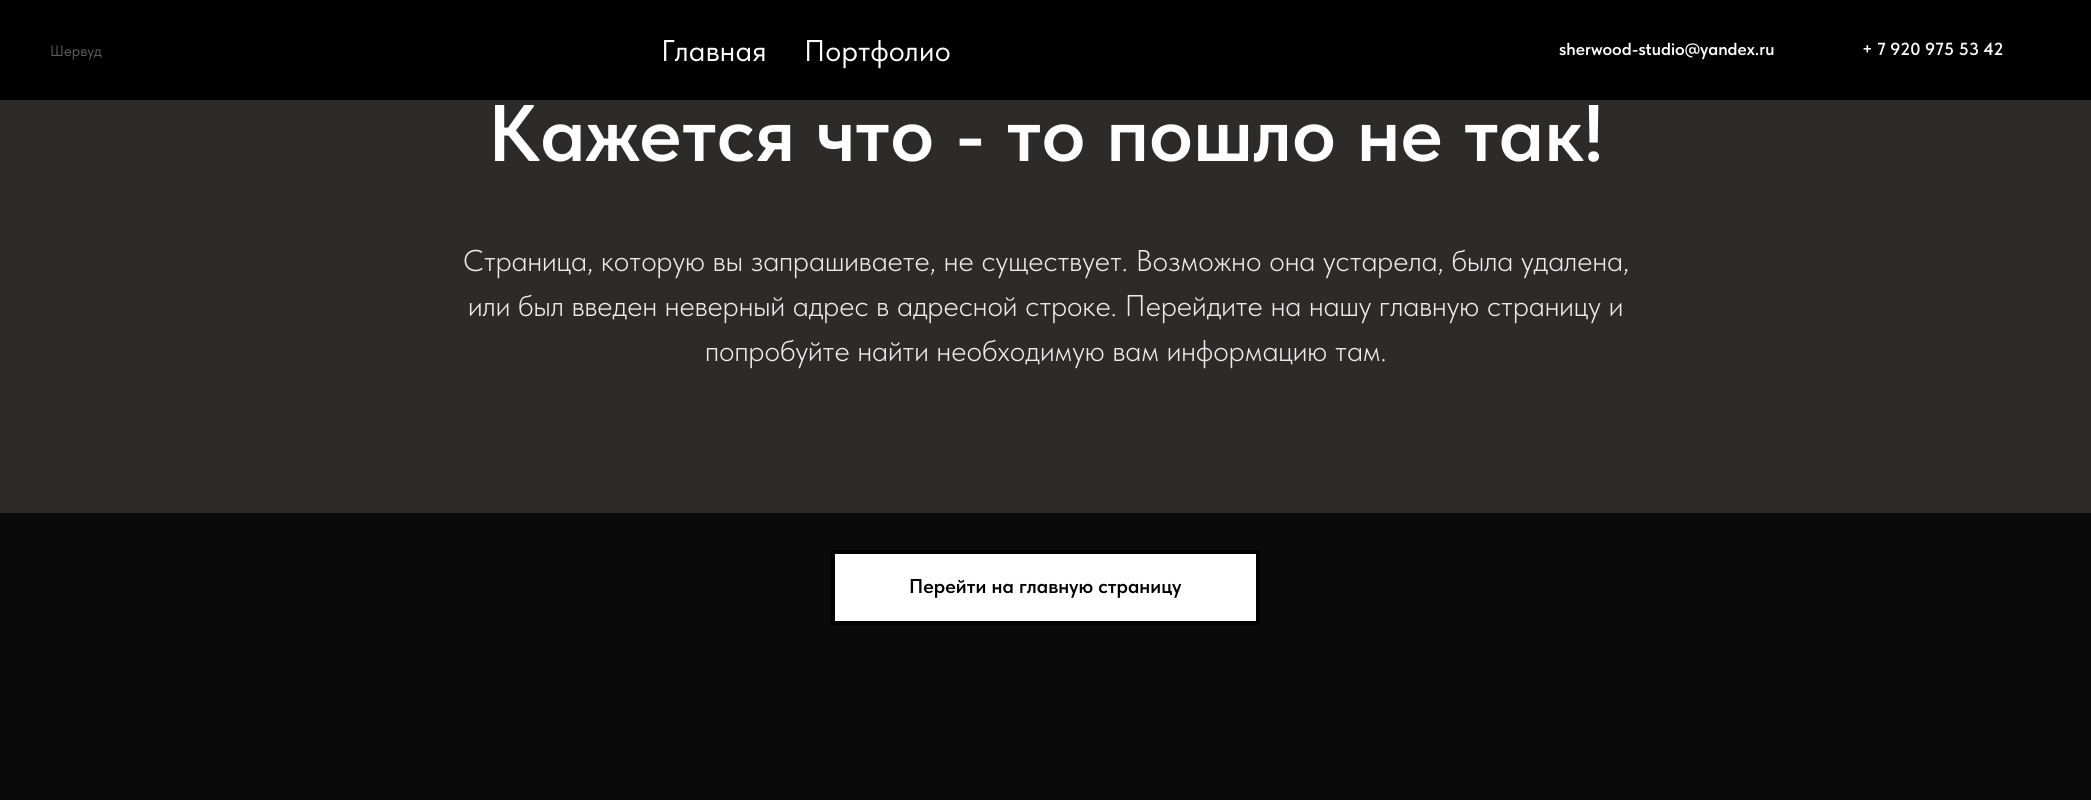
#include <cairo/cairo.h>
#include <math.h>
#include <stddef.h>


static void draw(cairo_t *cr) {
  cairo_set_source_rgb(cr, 11 / 255.0, 10 / 255.0, 10 / 255.0);
  cairo_paint(cr);
  cairo_set_source_rgb(cr, 0, 0, 0);
  cairo_rectangle(cr, 0, 0, 2091, 100);
  cairo_fill(cr);
  cairo_set_source_rgb(cr, 45 / 255.0, 42 / 255.0, 42 / 255.0);
  cairo_rectangle(cr, 0, 100, 2091, 413);
  cairo_fill(cr);
  cairo_set_source_rgb(cr, 1, 1, 1);
  cairo_rectangle(cr, 833, 552, 425, 71);
  cairo_fill_preserve(cr);
  cairo_set_source_rgb(cr, 0, 0, 0);
  cairo_set_line_width(cr, 4);
  cairo_stroke(cr);
  cairo_select_font_face(cr, "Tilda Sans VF", CAIRO_FONT_SLANT_NORMAL, CAIRO_FONT_WEIGHT_NORMAL);
  cairo_set_font_size(cr, 15);
  cairo_set_source_rgb(cr, 95 / 255.0, 93 / 255.0, 93 / 255.0);
  cairo_move_to(cr, 50, 56);
  cairo_show_text(cr, "Шервуд");
  cairo_set_font_size(cr, 30);
  cairo_set_source_rgb(cr, 254 / 255.0, 254 / 255.0, 254 / 255.0);
  cairo_move_to(cr, 661, 61);
  cairo_show_text(cr, "Главная");
  cairo_move_to(cr, 804, 61);
  cairo_show_text(cr, "Портфолио");
  cairo_select_font_face(cr, "Tilda Sans VF SemiBold", CAIRO_FONT_SLANT_NORMAL, CAIRO_FONT_WEIGHT_NORMAL);
  cairo_set_font_size(cr, 17.5);
  cairo_move_to(cr, 1559, 55);
  cairo_show_text(cr, "sherwood-studio@yandex.ru");
  cairo_move_to(cr, 1862, 55);
  cairo_show_text(cr, "+ 7 920 975 53 42");
  cairo_set_font_size(cr, 80);
  cairo_move_to(cr, 488, 161);
  cairo_show_text(cr, "Кажется что - то пошло не так!");
  cairo_select_font_face(cr, "Tilda Sans VF Light", CAIRO_FONT_SLANT_NORMAL, CAIRO_FONT_WEIGHT_NORMAL);
  cairo_set_font_size(cr, 30);
  cairo_set_source_rgb(cr, 236 / 255.0, 236 / 255.0, 236 / 255.0);
  cairo_move_to(cr, 463, 271);
  cairo_show_text(cr, "Страница, которую вы запрашиваете, не существует. Возможно она устарела, была удалена,");
  cairo_move_to(cr, 468, 316);
  cairo_show_text(cr, "или был введен неверный адрес в адресной строке. Перейдите на нашу главную страницу и");
  cairo_move_to(cr, 705, 361);
  cairo_show_text(cr, "попробуйте найти необходимую вам информацию там.");
  cairo_select_font_face(cr, "Tilda Sans VF SemiBold", CAIRO_FONT_SLANT_NORMAL, CAIRO_FONT_WEIGHT_NORMAL);
  cairo_set_font_size(cr, 20);
  cairo_set_source_rgb(cr, 0, 0, 0);
  cairo_move_to(cr, 909, 593);
  cairo_show_text(cr, "Перейти на главную страницу");
}

int main(void) {
  cairo_surface_t *surface = cairo_image_surface_create(CAIRO_FORMAT_RGB24, 2091, 800);
  cairo_t *cr = cairo_create(surface);
  cairo_font_options_t *options = cairo_font_options_create();
  cairo_font_options_set_hint_metrics(options, CAIRO_HINT_METRICS_OFF);
  cairo_font_options_set_hint_style(options, CAIRO_HINT_STYLE_NONE);
  cairo_set_font_options(cr, options);
  cairo_set_miter_limit(cr, 4);
  draw(cr);
  cairo_surface_write_to_png(surface, "out.png");
  cairo_font_options_destroy(options);
  cairo_destroy(cr);
  cairo_surface_destroy(surface);
  return 0;
}
